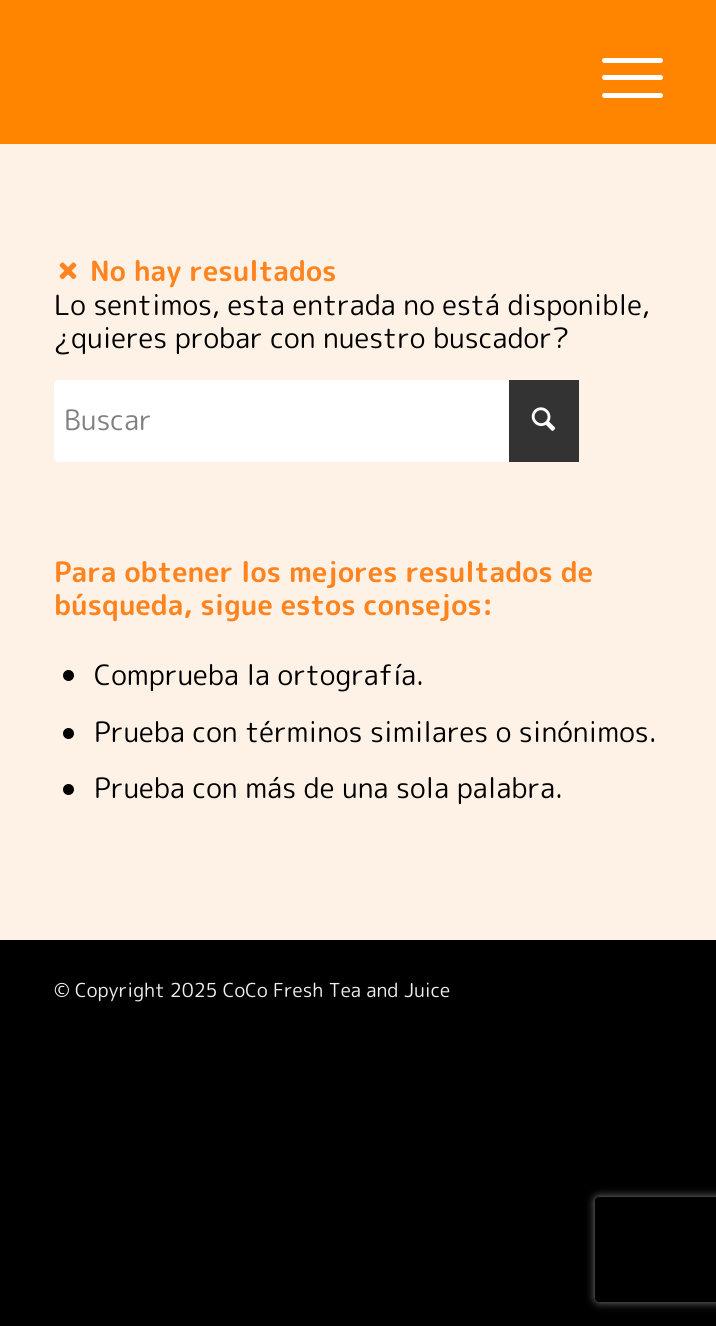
#include <cairo/cairo.h>
#include <math.h>
#include <stddef.h>


static void rounded_rect(cairo_t *cr, double x, double y, double w, double h, double r) {
  cairo_new_sub_path(cr);
  cairo_arc(cr, x + w - r, y + h - r, r, 0, M_PI / 2);
  cairo_arc(cr, x + r, y + h - r, r, M_PI / 2, M_PI);
  cairo_arc(cr, x + r, y + r, r, M_PI, 1.5 * M_PI);
  cairo_arc(cr, x + w - r, y + r, r, 1.5 * M_PI, 2 * M_PI);
  cairo_close_path(cr);
}

static void draw_shadow(cairo_t *cr, double x, double y, double w, double h, double r, double blur, double alpha) {
  cairo_push_group_with_content(cr, CAIRO_CONTENT_ALPHA);
  cairo_set_operator(cr, CAIRO_OPERATOR_SOURCE);
  for (int i = 15; i >= -15 && fmin(w, h) + blur * i / 3 > 0; i -= 2) {
    double e = blur * i / 6;
    cairo_set_source_rgba(cr, 0, 0, 0, alpha * erfc((i - 1) / 8.5) / 2);
    rounded_rect(cr, x - e, y - e, w + 2 * e, h + 2 * e, fmax(0, fmin(r + e + blur * .6, fmin(w, h) / 2 + e)));
    cairo_fill(cr);
  }
  cairo_pattern_t *soft = cairo_pop_group(cr);
  cairo_mask(cr, soft);
  cairo_pattern_destroy(soft);
}

static void draw_image(cairo_t *cr, const char *path, double x, double y, double w, double h) {
  cairo_surface_t *image = cairo_image_surface_create_from_png(path);
  cairo_save(cr);
  cairo_set_source_surface(cr, image, x, y);
  cairo_rectangle(cr, x, y, w, h);
  cairo_fill(cr);
  cairo_restore(cr);
  cairo_surface_destroy(image);
}

static void draw(cairo_t *cr) {
  cairo_set_source_rgb(cr, 0, 0, 0);
  cairo_paint(cr);
  cairo_set_source_rgb(cr, 1, 132 / 255.0, 0);
  cairo_rectangle(cr, 0, 0, 716, 144);
  cairo_fill(cr);
  cairo_set_source_rgb(cr, 1, 1, 1);
  rounded_rect(cr, 602, 75, 61, 5, 2.5);
  cairo_fill(cr);
  rounded_rect(cr, 602, 58, 61, 5, 2.5);
  cairo_fill(cr);
  rounded_rect(cr, 602, 93, 61, 5, 2.5);
  cairo_fill(cr);
  cairo_set_source_rgb(cr, 254 / 255.0, 242 / 255.0, 230 / 255.0);
  cairo_rectangle(cr, 0, 144, 716, 796);
  cairo_fill(cr);
  cairo_set_source_rgb(cr, 1, 1, 1);
  rounded_rect(cr, 54, 380, 525, 82, 5);
  cairo_fill(cr);
  cairo_set_source_rgb(cr, 51 / 255.0, 51 / 255.0, 51 / 255.0);
  cairo_rectangle(cr, 509, 380, 70, 82);
  cairo_fill(cr);
  draw_image(cr, "images/1.png", 531, 407, 25, 24);
  cairo_set_source_rgb(cr, 0, 0, 0);
  cairo_arc(cr, 68.5, 675.5, 5.5, 0, 2 * M_PI);
  cairo_fill(cr);
  cairo_arc(cr, 68.5, 733.5, 5.5, 0, 2 * M_PI);
  cairo_fill(cr);
  cairo_arc(cr, 68.5, 789.5, 5.5, 0, 2 * M_PI);
  cairo_fill(cr);
  cairo_save(cr);
  cairo_set_fill_rule(cr, CAIRO_FILL_RULE_EVEN_ODD);
  cairo_new_path(cr);
  cairo_move_to(cr, 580, 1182);
  cairo_line_to(cr, 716, 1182);
  cairo_line_to(cr, 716, 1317);
  cairo_line_to(cr, 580, 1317);
  cairo_close_path(cr);
  cairo_move_to(cr, 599, 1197);
  cairo_line_to(cr, 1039, 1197);
  cairo_curve_to(cr, 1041, 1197, 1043, 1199, 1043, 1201);
  cairo_line_to(cr, 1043, 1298);
  cairo_curve_to(cr, 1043, 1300, 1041, 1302, 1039, 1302);
  cairo_line_to(cr, 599, 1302);
  cairo_curve_to(cr, 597, 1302, 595, 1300, 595, 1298);
  cairo_line_to(cr, 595, 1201);
  cairo_curve_to(cr, 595, 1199, 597, 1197, 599, 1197);
  cairo_close_path(cr);
  cairo_clip(cr);
  cairo_set_source_rgb(cr, 128 / 255.0, 128 / 255.0, 128 / 255.0);
  draw_shadow(cr, 595, 1197, 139, 105, 4, 4.5, 1);
  cairo_restore(cr);
  cairo_select_font_face(cr, "Rounded Mplus 1c Bold", CAIRO_FONT_SLANT_NORMAL, CAIRO_FONT_WEIGHT_BOLD);
  cairo_set_font_size(cr, 28);
  cairo_set_source_rgb(cr, 1, 132 / 255.0, 31 / 255.0);
  cairo_move_to(cr, 54, 281);
  cairo_show_text(cr, "✖ No hay resultados");
  cairo_select_font_face(cr, "Rounded Mplus 1c", CAIRO_FONT_SLANT_NORMAL, CAIRO_FONT_WEIGHT_NORMAL);
  cairo_set_source_rgb(cr, 0, 0, 0);
  cairo_move_to(cr, 54, 315);
  cairo_show_text(cr, "Lo sentimos, esta entrada no está disponible,");
  cairo_move_to(cr, 54, 348);
  cairo_show_text(cr, "¿quieres probar con nuestro buscador?");
  cairo_set_source_rgb(cr, 128 / 255.0, 128 / 255.0, 128 / 255.0);
  cairo_move_to(cr, 64, 430);
  cairo_show_text(cr, "Buscar");
  cairo_select_font_face(cr, "Rounded Mplus 1c Bold", CAIRO_FONT_SLANT_NORMAL, CAIRO_FONT_WEIGHT_BOLD);
  cairo_set_source_rgb(cr, 1, 132 / 255.0, 31 / 255.0);
  cairo_move_to(cr, 54, 582);
  cairo_show_text(cr, "Para obtener los mejores resultados de");
  cairo_move_to(cr, 54, 615);
  cairo_show_text(cr, "búsqueda, sigue estos consejos:");
  cairo_select_font_face(cr, "Rounded Mplus 1c", CAIRO_FONT_SLANT_NORMAL, CAIRO_FONT_WEIGHT_NORMAL);
  cairo_set_source_rgb(cr, 0, 0, 0);
  cairo_move_to(cr, 94, 685);
  cairo_show_text(cr, "Comprueba la ortografía.");
  cairo_move_to(cr, 94, 742);
  cairo_show_text(cr, "Prueba con términos similares o sinónimos.");
  cairo_move_to(cr, 94, 798);
  cairo_show_text(cr, "Prueba con más de una sola palabra.");
  cairo_set_font_size(cr, 19.25);
  cairo_set_source_rgb(cr, 238 / 255.0, 238 / 255.0, 238 / 255.0);
  cairo_move_to(cr, 54, 997);
  cairo_show_text(cr, "© Copyright 2025 CoCo Fresh Tea and Juice");
}

int main(void) {
  cairo_surface_t *surface = cairo_image_surface_create(CAIRO_FORMAT_RGB24, 716, 1326);
  cairo_t *cr = cairo_create(surface);
  cairo_font_options_t *options = cairo_font_options_create();
  cairo_font_options_set_hint_metrics(options, CAIRO_HINT_METRICS_OFF);
  cairo_font_options_set_hint_style(options, CAIRO_HINT_STYLE_NONE);
  cairo_set_font_options(cr, options);
  cairo_set_miter_limit(cr, 4);
  draw(cr);
  cairo_surface_write_to_png(surface, "out.png");
  cairo_font_options_destroy(options);
  cairo_destroy(cr);
  cairo_surface_destroy(surface);
  return 0;
}
